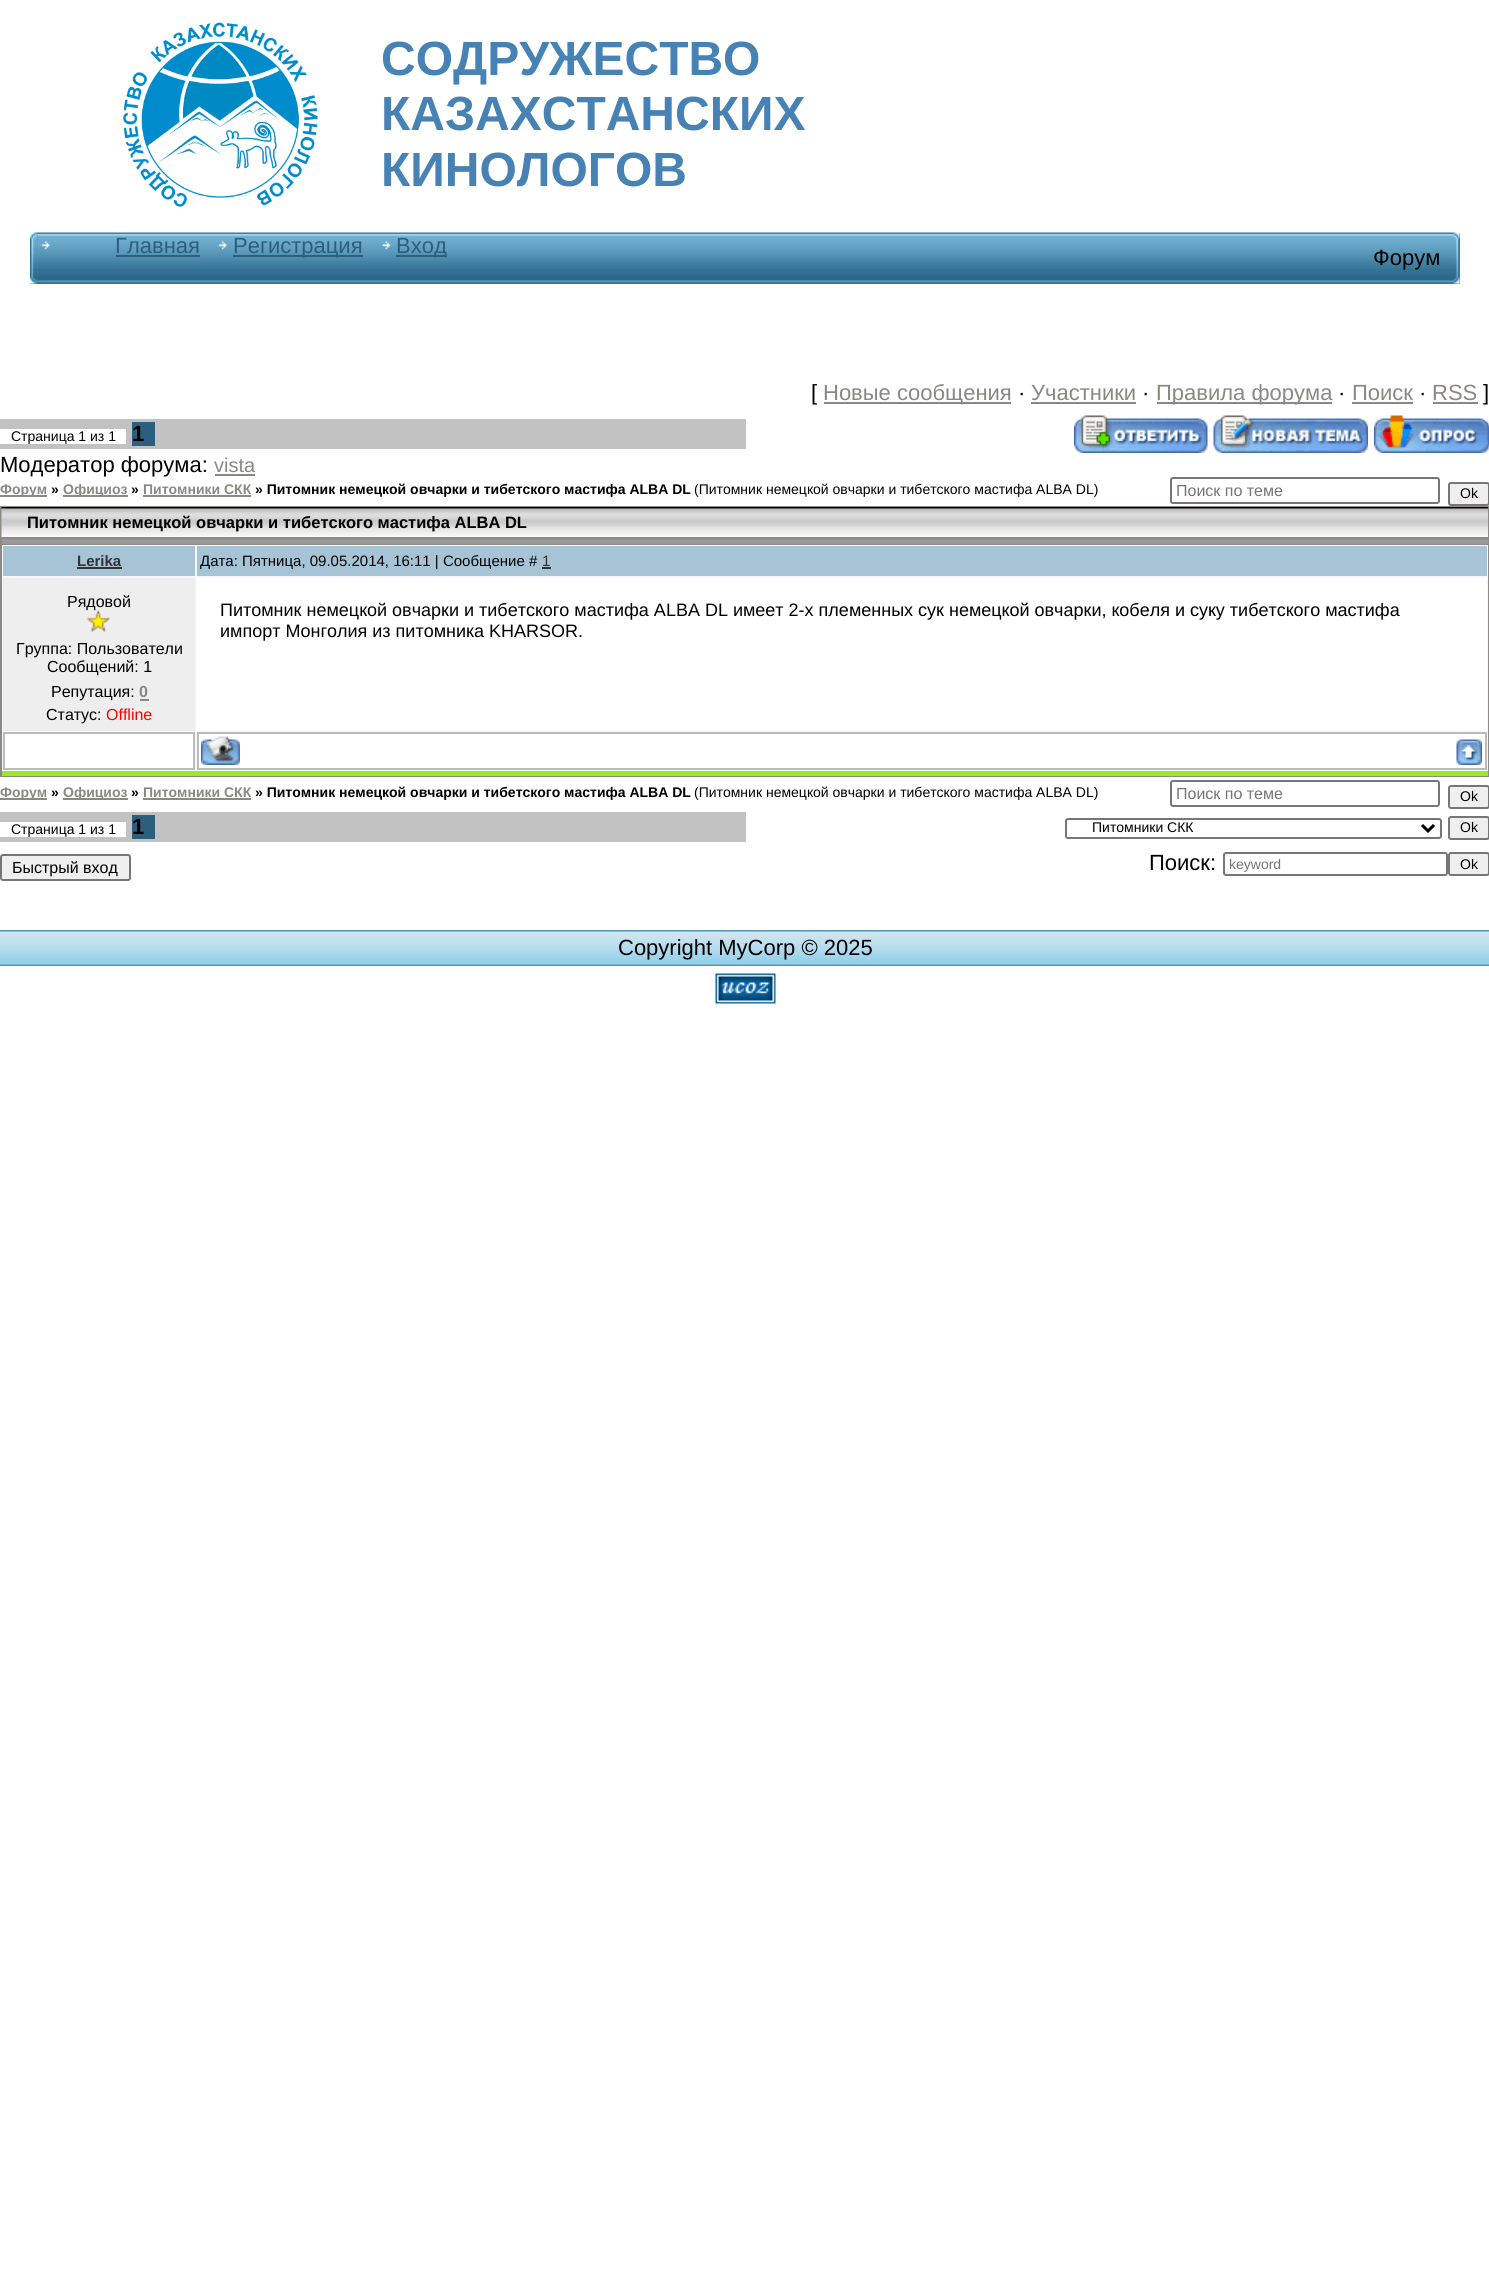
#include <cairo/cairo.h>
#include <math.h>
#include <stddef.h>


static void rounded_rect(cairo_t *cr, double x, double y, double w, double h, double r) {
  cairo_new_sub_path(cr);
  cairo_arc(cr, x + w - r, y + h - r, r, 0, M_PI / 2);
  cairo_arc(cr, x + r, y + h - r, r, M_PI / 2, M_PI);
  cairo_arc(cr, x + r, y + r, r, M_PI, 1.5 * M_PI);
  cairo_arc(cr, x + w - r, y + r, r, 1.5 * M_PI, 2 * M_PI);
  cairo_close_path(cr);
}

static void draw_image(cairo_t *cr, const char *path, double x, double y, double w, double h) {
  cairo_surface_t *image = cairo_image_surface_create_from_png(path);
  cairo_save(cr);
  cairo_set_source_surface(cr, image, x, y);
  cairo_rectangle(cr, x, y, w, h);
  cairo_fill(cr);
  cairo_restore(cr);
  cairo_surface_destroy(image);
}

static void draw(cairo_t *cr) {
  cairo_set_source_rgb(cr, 1, 1, 1);
  cairo_paint(cr);
  draw_image(cr, "images/1.png", 123, 22, 195, 185);
  cairo_set_source_rgb(cr, 49 / 255.0, 142 / 255.0, 183 / 255.0);
  cairo_rectangle(cr, 30, 233, 8, 51);
  cairo_fill(cr);
  cairo_rectangle(cr, 38, 283, 1414, 1);
  cairo_fill(cr);
  draw_image(cr, "images/3.png", 37, 232, 992, 52);
  draw_image(cr, "images/2.png", 30, 232, 8, 52);
  draw_image(cr, "images/4.png", 41, 241, 9, 9);
  cairo_set_source_rgb(cr, 44 / 255.0, 94 / 255.0, 125 / 255.0);
  cairo_rectangle(cr, 116, 255, 84, 2);
  cairo_fill(cr);
  draw_image(cr, "images/4.png", 218, 241, 9, 9);
  cairo_rectangle(cr, 233, 255, 130, 2);
  cairo_fill(cr);
  draw_image(cr, "images/5.png", 382, 241, 9, 9);
  cairo_rectangle(cr, 396, 255, 51, 2);
  cairo_fill(cr);
  draw_image(cr, "images/6.png", 1029, 232, 423, 52);
  cairo_set_source_rgb(cr, 49 / 255.0, 142 / 255.0, 183 / 255.0);
  cairo_rectangle(cr, 1452, 233, 8, 51);
  cairo_fill(cr);
  draw_image(cr, "images/7.png", 1452, 232, 8, 52);
  cairo_set_source_rgb(cr, 139 / 255.0, 136 / 255.0, 129 / 255.0);
  cairo_rectangle(cr, 824, 402, 187, 2);
  cairo_fill(cr);
  cairo_rectangle(cr, 1031, 402, 105, 2);
  cairo_fill(cr);
  cairo_rectangle(cr, 1157, 402, 175, 2);
  cairo_fill(cr);
  cairo_rectangle(cr, 1352, 402, 61, 2);
  cairo_fill(cr);
  cairo_rectangle(cr, 1433, 402, 45, 2);
  cairo_fill(cr);
  cairo_set_source_rgb(cr, 194 / 255.0, 194 / 255.0, 194 / 255.0);
  cairo_rectangle(cr, 0, 419, 746, 30);
  cairo_fill(cr);
  cairo_set_source_rgb(cr, 1, 1, 1);
  cairo_rectangle(cr, 0, 429, 126, 15);
  cairo_fill(cr);
  cairo_set_source_rgb(cr, 44 / 255.0, 94 / 255.0, 125 / 255.0);
  cairo_rectangle(cr, 132, 422, 23, 24);
  cairo_fill(cr);
  draw_image(cr, "images/8.png", 1074, 415, 134, 38);
  draw_image(cr, "images/9.png", 1213, 415, 155, 38);
  draw_image(cr, "images/10.png", 1374, 415, 115, 38);
  cairo_set_source_rgb(cr, 139 / 255.0, 136 / 255.0, 129 / 255.0);
  cairo_rectangle(cr, 215, 474, 40, 2);
  cairo_fill(cr);
  cairo_rectangle(cr, 0, 495, 47, 2);
  cairo_fill(cr);
  cairo_rectangle(cr, 63, 495, 65, 2);
  cairo_fill(cr);
  cairo_rectangle(cr, 143, 495, 108, 2);
  cairo_fill(cr);
  rounded_rect(cr, 1171, 478, 268, 25, 2);
  cairo_set_source_rgb(cr, 118 / 255.0, 118 / 255.0, 118 / 255.0);
  cairo_stroke(cr);
  cairo_set_source_rgb(cr, 239 / 255.0, 239 / 255.0, 239 / 255.0);
  rounded_rect(cr, 1449, 483, 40, 22, 2);
  cairo_fill_preserve(cr);
  cairo_set_source_rgb(cr, 118 / 255.0, 118 / 255.0, 118 / 255.0);
  cairo_stroke(cr);
  cairo_set_source_rgb(cr, 140 / 255.0, 138 / 255.0, 130 / 255.0);
  cairo_rectangle(cr, 0, 506, 1489, 271);
  cairo_fill(cr);
  draw_image(cr, "images/11.png", 1, 507, 1487, 30);
  cairo_set_source_rgb(cr, 153 / 255.0, 153 / 255.0, 153 / 255.0);
  cairo_rectangle(cr, 2, 539, 1486, 5);
  cairo_fill(cr);
  cairo_set_source_rgb(cr, 245 / 255.0, 249 / 255.0, 253 / 255.0);
  cairo_rectangle(cr, 2, 545, 1486, 226);
  cairo_fill(cr);
  cairo_set_source_rgb(cr, 154 / 255.0, 234 / 255.0, 29 / 255.0);
  cairo_rectangle(cr, 2, 771, 1486, 5);
  cairo_fill(cr);
  cairo_set_source_rgb(cr, 166 / 255.0, 196 / 255.0, 213 / 255.0);
  cairo_rectangle(cr, 3, 546, 192, 30);
  cairo_fill(cr);
  cairo_set_source_rgb(cr, 51 / 255.0, 51 / 255.0, 51 / 255.0);
  cairo_rectangle(cr, 77, 567, 45, 2);
  cairo_fill(cr);
  cairo_set_source_rgb(cr, 166 / 255.0, 196 / 255.0, 213 / 255.0);
  cairo_rectangle(cr, 197, 546, 1290, 30);
  cairo_fill(cr);
  cairo_set_source_rgb(cr, 51 / 255.0, 51 / 255.0, 51 / 255.0);
  cairo_rectangle(cr, 542, 567, 9, 2);
  cairo_fill(cr);
  cairo_set_source_rgb(cr, 238 / 255.0, 238 / 255.0, 238 / 255.0);
  cairo_rectangle(cr, 3, 578, 192, 153);
  cairo_fill(cr);
  cairo_set_source_rgb(cr, 139 / 255.0, 136 / 255.0, 129 / 255.0);
  cairo_rectangle(cr, 140, 699, 9, 2);
  cairo_fill(cr);
  cairo_set_source_rgb(cr, 1, 1, 1);
  cairo_rectangle(cr, 197, 578, 1290, 153);
  cairo_fill(cr);
  cairo_rectangle(cr, 4, 733, 190, 36);
  cairo_fill_preserve(cr);
  cairo_set_source_rgb(cr, 187 / 255.0, 187 / 255.0, 187 / 255.0);
  cairo_stroke(cr);
  cairo_set_source_rgb(cr, 1, 1, 1);
  cairo_rectangle(cr, 198, 733, 1288, 36);
  cairo_fill_preserve(cr);
  cairo_set_source_rgb(cr, 187 / 255.0, 187 / 255.0, 187 / 255.0);
  cairo_stroke(cr);
  draw_image(cr, "images/13.png", 201, 736, 39, 29);
  draw_image(cr, "images/14.png", 1456, 739, 26, 26);
  cairo_set_source_rgb(cr, 139 / 255.0, 136 / 255.0, 129 / 255.0);
  cairo_rectangle(cr, 0, 798, 47, 2);
  cairo_fill(cr);
  cairo_rectangle(cr, 63, 798, 65, 2);
  cairo_fill(cr);
  cairo_rectangle(cr, 143, 798, 108, 2);
  cairo_fill(cr);
  rounded_rect(cr, 1171, 781, 268, 25, 2);
  cairo_set_source_rgb(cr, 118 / 255.0, 118 / 255.0, 118 / 255.0);
  cairo_stroke(cr);
  cairo_set_source_rgb(cr, 239 / 255.0, 239 / 255.0, 239 / 255.0);
  rounded_rect(cr, 1449, 786, 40, 22, 2);
  cairo_fill_preserve(cr);
  cairo_set_source_rgb(cr, 118 / 255.0, 118 / 255.0, 118 / 255.0);
  cairo_stroke(cr);
  cairo_set_source_rgb(cr, 194 / 255.0, 194 / 255.0, 194 / 255.0);
  cairo_rectangle(cr, 0, 812, 746, 30);
  cairo_fill(cr);
  cairo_set_source_rgb(cr, 1, 1, 1);
  cairo_rectangle(cr, 0, 822, 126, 15);
  cairo_fill(cr);
  cairo_set_source_rgb(cr, 44 / 255.0, 94 / 255.0, 125 / 255.0);
  cairo_rectangle(cr, 132, 815, 23, 24);
  cairo_fill(cr);
  rounded_rect(cr, 1066, 819, 375, 19, 2);
  cairo_set_source_rgb(cr, 118 / 255.0, 118 / 255.0, 118 / 255.0);
  cairo_stroke(cr);
  cairo_new_path(cr);
  cairo_move_to(cr, 1422, 825);
  cairo_line_to(cr, 1428, 831);
  cairo_line_to(cr, 1434, 825);
  cairo_set_source_rgb(cr, 0, 0, 0);
  cairo_set_line_width(cr, 3);
  cairo_stroke(cr);
  cairo_set_source_rgb(cr, 239 / 255.0, 239 / 255.0, 239 / 255.0);
  rounded_rect(cr, 1449, 817, 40, 22, 2);
  cairo_fill_preserve(cr);
  cairo_set_source_rgb(cr, 118 / 255.0, 118 / 255.0, 118 / 255.0);
  cairo_set_line_width(cr, 2);
  cairo_stroke(cr);
  cairo_set_source_rgb(cr, 239 / 255.0, 239 / 255.0, 239 / 255.0);
  rounded_rect(cr, 1, 855, 129, 25, 2);
  cairo_fill_preserve(cr);
  cairo_set_source_rgb(cr, 118 / 255.0, 118 / 255.0, 118 / 255.0);
  cairo_stroke(cr);
  rounded_rect(cr, 1224, 853, 223, 22, 2);
  cairo_stroke(cr);
  cairo_set_source_rgb(cr, 239 / 255.0, 239 / 255.0, 239 / 255.0);
  rounded_rect(cr, 1449, 853, 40, 22, 2);
  cairo_fill_preserve(cr);
  cairo_set_source_rgb(cr, 118 / 255.0, 118 / 255.0, 118 / 255.0);
  cairo_stroke(cr);
  draw_image(cr, "images/15.png", 0, 930, 1489, 36);
  draw_image(cr, "images/16.png", 715, 973, 61, 31);
  cairo_select_font_face(cr, "Liberation Sans", CAIRO_FONT_SLANT_NORMAL, CAIRO_FONT_WEIGHT_BOLD);
  cairo_set_font_size(cr, 48);
  cairo_set_source_rgb(cr, 70 / 255.0, 130 / 255.0, 180 / 255.0);
  cairo_move_to(cr, 381, 75);
  cairo_show_text(cr, "СОДРУЖЕСТВО");
  cairo_move_to(cr, 381, 130);
  cairo_show_text(cr, "КАЗАХСТАНСКИХ");
  cairo_move_to(cr, 381, 186);
  cairo_show_text(cr, "КИНОЛОГОВ");
  cairo_select_font_face(cr, "Liberation Sans", CAIRO_FONT_SLANT_NORMAL, CAIRO_FONT_WEIGHT_NORMAL);
  cairo_set_font_size(cr, 22);
  cairo_set_source_rgb(cr, 44 / 255.0, 94 / 255.0, 125 / 255.0);
  cairo_move_to(cr, 115, 253);
  cairo_show_text(cr, "Главная");
  cairo_move_to(cr, 233, 253);
  cairo_show_text(cr, "Регистрация");
  cairo_move_to(cr, 396, 253);
  cairo_show_text(cr, "Вход");
  cairo_set_source_rgb(cr, 0, 0, 0);
  cairo_move_to(cr, 1373, 265);
  cairo_show_text(cr, "Форум");
  cairo_move_to(cr, 811, 400);
  cairo_show_text(cr, "[");
  cairo_set_source_rgb(cr, 139 / 255.0, 136 / 255.0, 129 / 255.0);
  cairo_move_to(cr, 823, 400);
  cairo_show_text(cr, "Новые сообщения");
  cairo_set_source_rgb(cr, 0, 0, 0);
  cairo_move_to(cr, 1018, 400);
  cairo_show_text(cr, "·");
  cairo_set_source_rgb(cr, 139 / 255.0, 136 / 255.0, 129 / 255.0);
  cairo_move_to(cr, 1031, 400);
  cairo_show_text(cr, "Участники");
  cairo_set_source_rgb(cr, 0, 0, 0);
  cairo_move_to(cr, 1142, 400);
  cairo_show_text(cr, "·");
  cairo_set_source_rgb(cr, 139 / 255.0, 136 / 255.0, 129 / 255.0);
  cairo_move_to(cr, 1156, 400);
  cairo_show_text(cr, "Правила форума");
  cairo_set_source_rgb(cr, 0, 0, 0);
  cairo_move_to(cr, 1338, 400);
  cairo_show_text(cr, "·");
  cairo_set_source_rgb(cr, 139 / 255.0, 136 / 255.0, 129 / 255.0);
  cairo_move_to(cr, 1352, 400);
  cairo_show_text(cr, "Поиск");
  cairo_set_source_rgb(cr, 0, 0, 0);
  cairo_move_to(cr, 1419, 400);
  cairo_show_text(cr, "·");
  cairo_set_source_rgb(cr, 139 / 255.0, 136 / 255.0, 129 / 255.0);
  cairo_move_to(cr, 1432, 400);
  cairo_show_text(cr, "RSS");
  cairo_set_source_rgb(cr, 0, 0, 0);
  cairo_move_to(cr, 1483, 400);
  cairo_show_text(cr, "]");
  cairo_set_font_size(cr, 14);
  cairo_move_to(cr, 11, 441);
  cairo_show_text(cr, "Страница 1 из 1");
  cairo_select_font_face(cr, "Liberation Sans", CAIRO_FONT_SLANT_NORMAL, CAIRO_FONT_WEIGHT_BOLD);
  cairo_set_font_size(cr, 22);
  cairo_move_to(cr, 132, 441);
  cairo_show_text(cr, "1");
  cairo_select_font_face(cr, "Liberation Sans", CAIRO_FONT_SLANT_NORMAL, CAIRO_FONT_WEIGHT_NORMAL);
  cairo_move_to(cr, 0, 472);
  cairo_show_text(cr, "Модератор форума:");
  cairo_set_font_size(cr, 20);
  cairo_set_source_rgb(cr, 139 / 255.0, 136 / 255.0, 129 / 255.0);
  cairo_move_to(cr, 214, 472);
  cairo_show_text(cr, "vista");
  cairo_select_font_face(cr, "Liberation Sans", CAIRO_FONT_SLANT_NORMAL, CAIRO_FONT_WEIGHT_BOLD);
  cairo_set_font_size(cr, 14);
  cairo_move_to(cr, 0, 494);
  cairo_show_text(cr, "Форум");
  cairo_set_source_rgb(cr, 0, 0, 0);
  cairo_move_to(cr, 51, 494);
  cairo_show_text(cr, "»");
  cairo_set_source_rgb(cr, 139 / 255.0, 136 / 255.0, 129 / 255.0);
  cairo_move_to(cr, 63, 494);
  cairo_show_text(cr, "Официоз");
  cairo_set_source_rgb(cr, 0, 0, 0);
  cairo_move_to(cr, 131, 494);
  cairo_show_text(cr, "»");
  cairo_set_source_rgb(cr, 139 / 255.0, 136 / 255.0, 129 / 255.0);
  cairo_move_to(cr, 143, 494);
  cairo_show_text(cr, "Питомники СКК");
  cairo_set_source_rgb(cr, 0, 0, 0);
  cairo_move_to(cr, 255, 494);
  cairo_show_text(cr, "» Питомник немецкой овчарки и тибетского мастифа ALBA DL");
  cairo_select_font_face(cr, "Liberation Sans", CAIRO_FONT_SLANT_NORMAL, CAIRO_FONT_WEIGHT_NORMAL);
  cairo_move_to(cr, 694, 494);
  cairo_show_text(cr, "(Питомник немецкой овчарки и тибетского мастифа ALBA DL)");
  cairo_set_font_size(cr, 16);
  cairo_set_source_rgb(cr, 117 / 255.0, 117 / 255.0, 117 / 255.0);
  cairo_move_to(cr, 1176, 496);
  cairo_show_text(cr, "Поиск по теме");
  cairo_set_font_size(cr, 14);
  cairo_set_source_rgb(cr, 0, 0, 0);
  cairo_move_to(cr, 1460, 498);
  cairo_show_text(cr, "Ok");
  cairo_select_font_face(cr, "Liberation Sans", CAIRO_FONT_SLANT_NORMAL, CAIRO_FONT_WEIGHT_BOLD);
  cairo_set_font_size(cr, 16.5);
  cairo_move_to(cr, 27, 528);
  cairo_show_text(cr, "Питомник немецкой овчарки и тибетского мастифа ALBA DL");
  cairo_set_font_size(cr, 15);
  cairo_set_source_rgb(cr, 51 / 255.0, 51 / 255.0, 51 / 255.0);
  cairo_move_to(cr, 77, 566);
  cairo_show_text(cr, "Lerika");
  cairo_select_font_face(cr, "Liberation Sans", CAIRO_FONT_SLANT_NORMAL, CAIRO_FONT_WEIGHT_NORMAL);
  cairo_set_source_rgb(cr, 0, 0, 0);
  cairo_move_to(cr, 200, 566);
  cairo_show_text(cr, "Дата: Пятница, 09.05.2014, 16:11 | Сообщение #");
  cairo_set_source_rgb(cr, 51 / 255.0, 51 / 255.0, 51 / 255.0);
  cairo_move_to(cr, 542, 566);
  cairo_show_text(cr, "1");
  cairo_set_font_size(cr, 16);
  cairo_set_source_rgb(cr, 0, 0, 0);
  cairo_move_to(cr, 67, 607);
  cairo_show_text(cr, "Рядовой");
  draw_image(cr, "images/12.png", 86, 610, 24, 22);
  cairo_move_to(cr, 16, 654);
  cairo_show_text(cr, "Группа: Пользователи");
  cairo_move_to(cr, 47, 672);
  cairo_show_text(cr, "Сообщений: 1");
  cairo_move_to(cr, 51, 697);
  cairo_show_text(cr, "Репутация:");
  cairo_select_font_face(cr, "Liberation Sans", CAIRO_FONT_SLANT_NORMAL, CAIRO_FONT_WEIGHT_BOLD);
  cairo_set_source_rgb(cr, 139 / 255.0, 136 / 255.0, 129 / 255.0);
  cairo_move_to(cr, 139, 697);
  cairo_show_text(cr, "0");
  cairo_select_font_face(cr, "Liberation Sans", CAIRO_FONT_SLANT_NORMAL, CAIRO_FONT_WEIGHT_NORMAL);
  cairo_set_source_rgb(cr, 0, 0, 0);
  cairo_move_to(cr, 46, 720);
  cairo_show_text(cr, "Статус:");
  cairo_set_source_rgb(cr, 1, 0, 0);
  cairo_move_to(cr, 106, 720);
  cairo_show_text(cr, "Offline");
  cairo_set_font_size(cr, 18);
  cairo_set_source_rgb(cr, 0, 0, 0);
  cairo_move_to(cr, 220, 616);
  cairo_show_text(cr, "Питомник немецкой овчарки и тибетского мастифа ALBA DL имеет 2-х племенных сук немецкой овчарки, кобеля и суку тибетского мастифа");
  cairo_move_to(cr, 220, 637);
  cairo_show_text(cr, "импорт Монголия из питомника KHARSOR.");
  cairo_select_font_face(cr, "Liberation Sans", CAIRO_FONT_SLANT_NORMAL, CAIRO_FONT_WEIGHT_BOLD);
  cairo_set_font_size(cr, 14);
  cairo_set_source_rgb(cr, 139 / 255.0, 136 / 255.0, 129 / 255.0);
  cairo_move_to(cr, 0, 797);
  cairo_show_text(cr, "Форум");
  cairo_set_source_rgb(cr, 0, 0, 0);
  cairo_move_to(cr, 51, 797);
  cairo_show_text(cr, "»");
  cairo_set_source_rgb(cr, 139 / 255.0, 136 / 255.0, 129 / 255.0);
  cairo_move_to(cr, 63, 797);
  cairo_show_text(cr, "Официоз");
  cairo_set_source_rgb(cr, 0, 0, 0);
  cairo_move_to(cr, 131, 797);
  cairo_show_text(cr, "»");
  cairo_set_source_rgb(cr, 139 / 255.0, 136 / 255.0, 129 / 255.0);
  cairo_move_to(cr, 143, 797);
  cairo_show_text(cr, "Питомники СКК");
  cairo_set_source_rgb(cr, 0, 0, 0);
  cairo_move_to(cr, 255, 797);
  cairo_show_text(cr, "» Питомник немецкой овчарки и тибетского мастифа ALBA DL");
  cairo_select_font_face(cr, "Liberation Sans", CAIRO_FONT_SLANT_NORMAL, CAIRO_FONT_WEIGHT_NORMAL);
  cairo_move_to(cr, 694, 797);
  cairo_show_text(cr, "(Питомник немецкой овчарки и тибетского мастифа ALBA DL)");
  cairo_set_font_size(cr, 16);
  cairo_set_source_rgb(cr, 117 / 255.0, 117 / 255.0, 117 / 255.0);
  cairo_move_to(cr, 1176, 799);
  cairo_show_text(cr, "Поиск по теме");
  cairo_set_font_size(cr, 14);
  cairo_set_source_rgb(cr, 0, 0, 0);
  cairo_move_to(cr, 1460, 801);
  cairo_show_text(cr, "Ok");
  cairo_move_to(cr, 11, 834);
  cairo_show_text(cr, "Страница 1 из 1");
  cairo_select_font_face(cr, "Liberation Sans", CAIRO_FONT_SLANT_NORMAL, CAIRO_FONT_WEIGHT_BOLD);
  cairo_set_font_size(cr, 22);
  cairo_move_to(cr, 132, 834);
  cairo_show_text(cr, "1");
  cairo_select_font_face(cr, "Liberation Sans", CAIRO_FONT_SLANT_NORMAL, CAIRO_FONT_WEIGHT_NORMAL);
  cairo_set_font_size(cr, 14);
  cairo_move_to(cr, 1092, 832);
  cairo_show_text(cr, "Питомники СКК");
  cairo_move_to(cr, 1460, 832);
  cairo_show_text(cr, "Ok");
  cairo_set_font_size(cr, 16);
  cairo_move_to(cr, 12, 873);
  cairo_show_text(cr, "Быстрый вход");
  cairo_set_font_size(cr, 22);
  cairo_move_to(cr, 1149, 870);
  cairo_show_text(cr, "Поиск:");
  cairo_set_font_size(cr, 14);
  cairo_set_source_rgb(cr, 117 / 255.0, 117 / 255.0, 117 / 255.0);
  cairo_move_to(cr, 1229, 869);
  cairo_show_text(cr, "keyword");
  cairo_set_source_rgb(cr, 0, 0, 0);
  cairo_move_to(cr, 1460, 869);
  cairo_show_text(cr, "Ok");
  cairo_set_font_size(cr, 22);
  cairo_move_to(cr, 618, 955);
  cairo_show_text(cr, "Copyright MyCorp © 2025");
}

int main(void) {
  cairo_surface_t *surface = cairo_image_surface_create(CAIRO_FORMAT_RGB24, 1489, 2270);
  cairo_t *cr = cairo_create(surface);
  cairo_font_options_t *options = cairo_font_options_create();
  cairo_font_options_set_hint_metrics(options, CAIRO_HINT_METRICS_OFF);
  cairo_font_options_set_hint_style(options, CAIRO_HINT_STYLE_NONE);
  cairo_set_font_options(cr, options);
  cairo_set_miter_limit(cr, 4);
  draw(cr);
  cairo_surface_write_to_png(surface, "out.png");
  cairo_font_options_destroy(options);
  cairo_destroy(cr);
  cairo_surface_destroy(surface);
  return 0;
}
